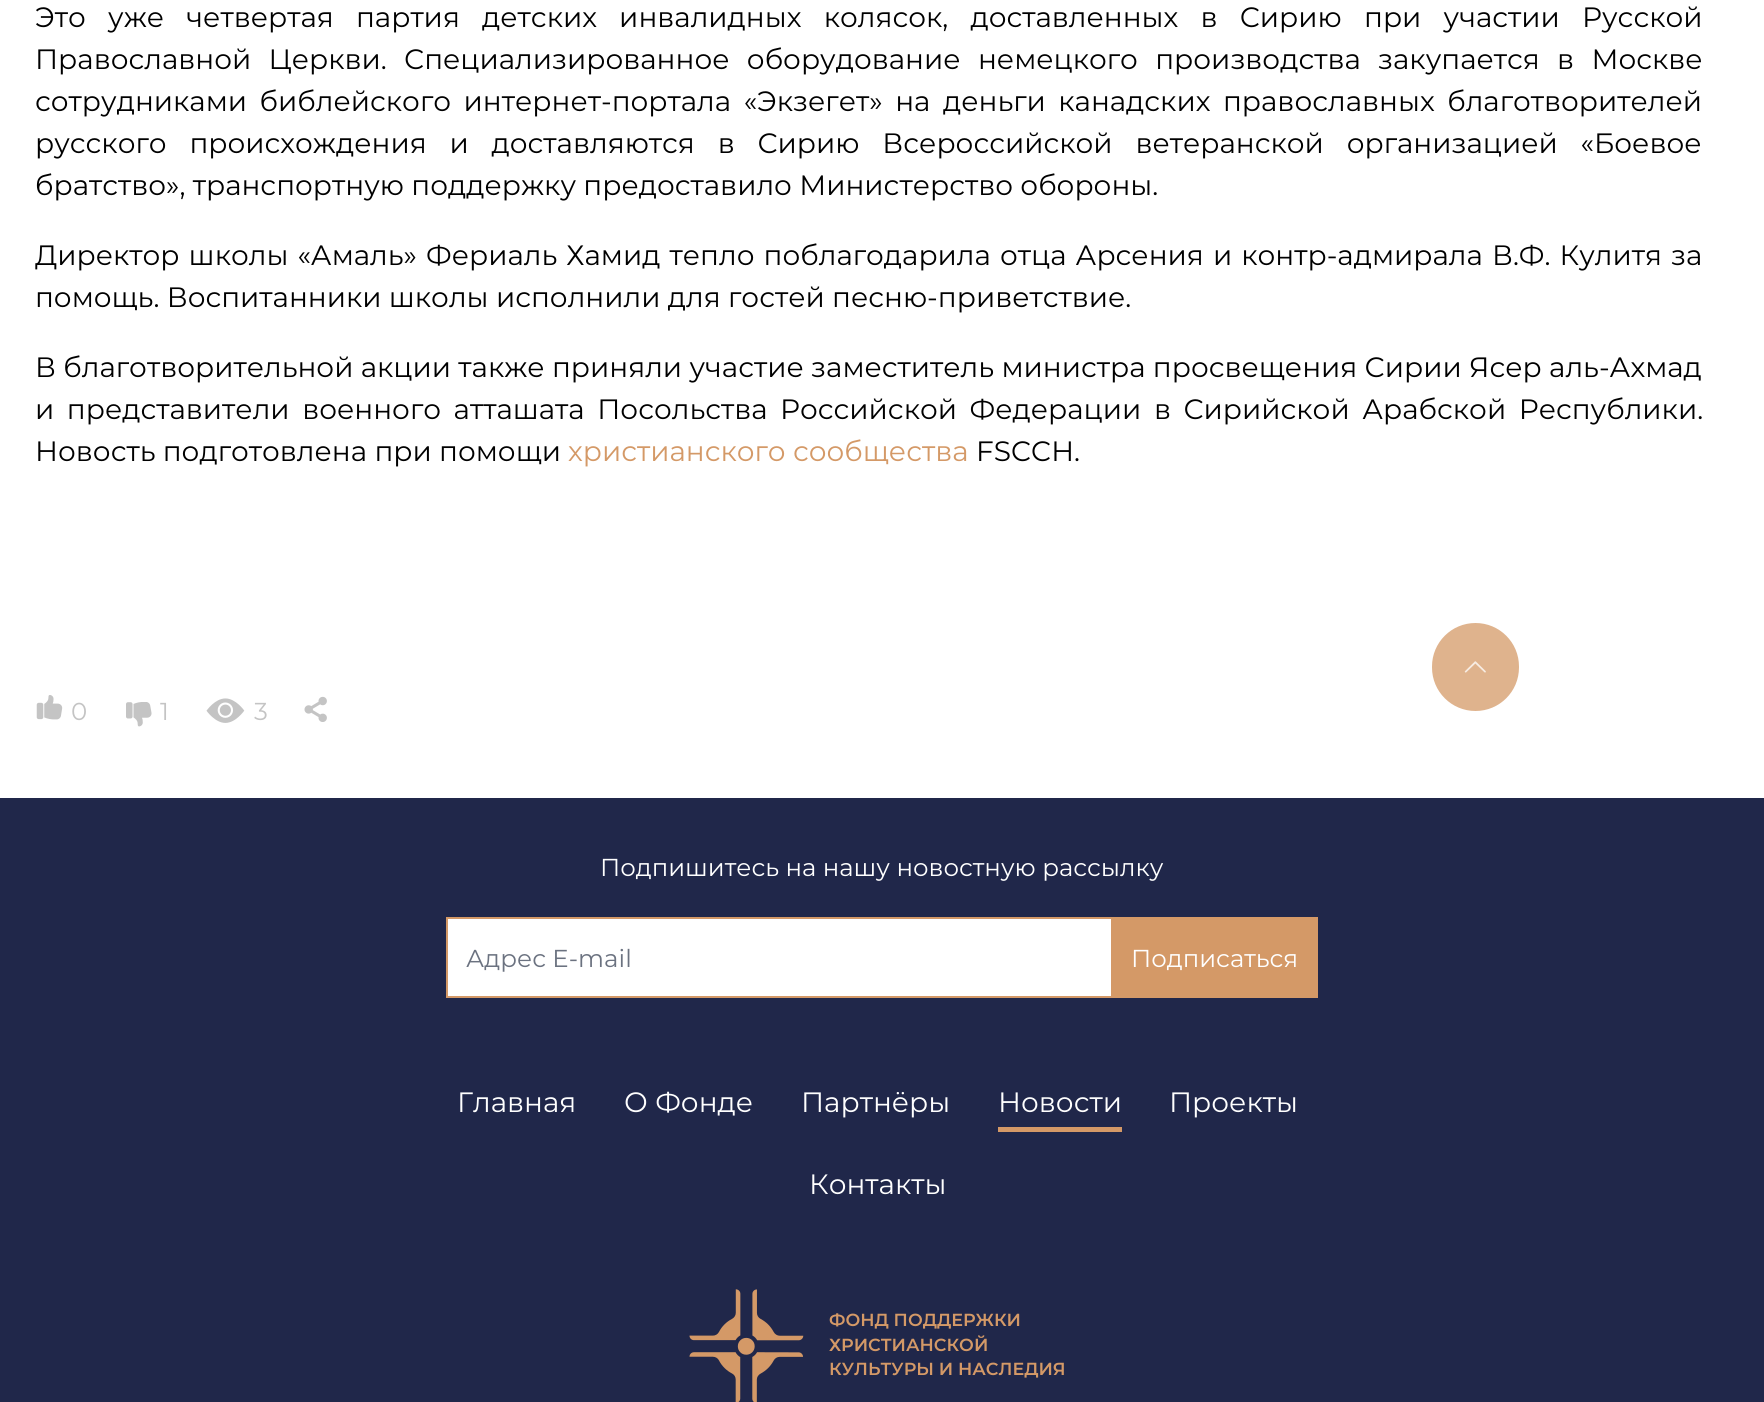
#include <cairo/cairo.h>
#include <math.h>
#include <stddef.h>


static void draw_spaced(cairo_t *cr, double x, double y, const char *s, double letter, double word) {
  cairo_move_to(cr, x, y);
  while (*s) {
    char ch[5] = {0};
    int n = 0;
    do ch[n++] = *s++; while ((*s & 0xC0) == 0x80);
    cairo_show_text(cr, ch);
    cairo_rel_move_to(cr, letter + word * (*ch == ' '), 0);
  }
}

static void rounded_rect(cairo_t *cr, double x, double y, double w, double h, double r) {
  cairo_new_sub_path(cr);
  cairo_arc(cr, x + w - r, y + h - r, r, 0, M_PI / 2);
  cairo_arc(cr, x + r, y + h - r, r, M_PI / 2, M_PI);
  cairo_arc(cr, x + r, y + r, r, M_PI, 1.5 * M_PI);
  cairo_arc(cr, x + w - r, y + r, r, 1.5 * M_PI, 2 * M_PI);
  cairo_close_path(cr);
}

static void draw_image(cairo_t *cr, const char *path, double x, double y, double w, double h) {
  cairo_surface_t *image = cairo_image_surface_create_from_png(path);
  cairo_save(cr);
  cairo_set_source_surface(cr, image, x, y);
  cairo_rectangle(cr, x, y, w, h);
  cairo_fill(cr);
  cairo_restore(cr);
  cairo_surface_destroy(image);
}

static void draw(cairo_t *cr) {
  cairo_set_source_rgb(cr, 1, 1, 1);
  cairo_paint(cr);
  draw_image(cr, "images/1.png", 36, 695, 27, 25);
  draw_image(cr, "images/2.png", 126, 702, 26, 25);
  draw_image(cr, "images/3.png", 206, 698, 39, 25);
  draw_image(cr, "images/4.png", 304, 696, 23, 26);
  cairo_set_source_rgb(cr, 223 / 255.0, 179 / 255.0, 141 / 255.0);
  rounded_rect(cr, 1433, 624, 85, 86, 42.5);
  cairo_fill_preserve(cr);
  cairo_stroke(cr);
  draw_image(cr, "images/5.png", 1464, 661, 22, 12);
  cairo_set_source_rgb(cr, 32 / 255.0, 39 / 255.0, 74 / 255.0);
  cairo_rectangle(cr, 0, 798, 1764, 604);
  cairo_fill(cr);
  cairo_set_source_rgb(cr, 1, 1, 1);
  cairo_rectangle(cr, 448, 919, 663, 77);
  cairo_fill(cr);
  cairo_rectangle(cr, 447, 918, 870, 79);
  cairo_set_source_rgb(cr, 212 / 255.0, 153 / 255.0, 103 / 255.0);
  cairo_stroke(cr);
  cairo_rectangle(cr, 1111, 919, 205, 77);
  cairo_fill(cr);
  cairo_rectangle(cr, 998, 1127, 124, 5);
  cairo_fill(cr);
  draw_image(cr, "images/6.png", 689, 1289, 115, 113);
  cairo_select_font_face(cr, "Montserrat", CAIRO_FONT_SLANT_NORMAL, CAIRO_FONT_WEIGHT_NORMAL);
  cairo_set_font_size(cr, 28);
  cairo_set_source_rgb(cr, 0, 0, 0);
  draw_spaced(cr, 35, 27, "Это уже четвертая партия детских инвалидных колясок, доставленных в Сирию при участии Русской", 0, 14.9);
  draw_spaced(cr, 35, 69, "Православной Церкви. Специализированное оборудование немецкого производства закупается в Москве", 0, 10);
  draw_spaced(cr, 35, 111, "сотрудниками библейского интернет-портала «Экзегет» на деньги канадских православных благотворителей", 0, 5.25);
  draw_spaced(cr, 35, 153, "русского происхождения и доставляются в Сирию Всероссийской ветеранской организацией «Боевое", 0, 15.5);
  cairo_move_to(cr, 35, 195);
  cairo_show_text(cr, "братство», транспортную поддержку предоставило Министерство обороны.");
  draw_spaced(cr, 35, 265, "Директор школы «Амаль» Фериаль Хамид тепло поблагодарила отца Арсения и контр-адмирала В.Ф. Кулитя за", 0, 1.75);
  cairo_move_to(cr, 35, 307);
  cairo_show_text(cr, "помощь. Воспитанники школы исполнили для гостей песню-приветствие.");
  cairo_move_to(cr, 35, 377);
  cairo_show_text(cr, "В благотворительной акции также приняли участие заместитель министра просвещения Сирии Ясер аль-Ахмад");
  draw_spaced(cr, 35, 419, "и представители военного атташата Посольства Российской Федерации в Сирийской Арабской Республики.", 0, 5.25);
  cairo_move_to(cr, 35, 461);
  cairo_show_text(cr, "Новость подготовлена при помощи");
  cairo_set_source_rgb(cr, 212 / 255.0, 153 / 255.0, 103 / 255.0);
  cairo_move_to(cr, 568, 461);
  cairo_show_text(cr, "христианского сообщества");
  cairo_set_source_rgb(cr, 0, 0, 0);
  cairo_move_to(cr, 976, 461);
  cairo_show_text(cr, "FSCCH.");
  cairo_set_font_size(cr, 24.5);
  cairo_set_source_rgb(cr, 196 / 255.0, 196 / 255.0, 196 / 255.0);
  cairo_move_to(cr, 71, 720);
  cairo_show_text(cr, "0");
  cairo_move_to(cr, 160, 720);
  cairo_show_text(cr, "1");
  cairo_move_to(cr, 254, 720);
  cairo_show_text(cr, "3");
  cairo_set_source_rgb(cr, 1, 1, 1);
  cairo_move_to(cr, 600, 876);
  cairo_show_text(cr, "Подпишитесь на нашу новостную рассылку");
  cairo_set_source_rgb(cr, 107 / 255.0, 114 / 255.0, 128 / 255.0);
  cairo_move_to(cr, 466, 967);
  cairo_show_text(cr, "Адрес E-mail");
  cairo_set_source_rgb(cr, 1, 1, 1);
  cairo_move_to(cr, 1131, 967);
  cairo_show_text(cr, "Подписаться");
  cairo_set_font_size(cr, 28);
  cairo_move_to(cr, 457, 1112);
  cairo_show_text(cr, "Главная");
  cairo_move_to(cr, 624, 1112);
  cairo_show_text(cr, "О Фонде");
  cairo_move_to(cr, 801, 1112);
  cairo_show_text(cr, "Партнёры");
  cairo_move_to(cr, 998, 1112);
  cairo_show_text(cr, "Новости");
  cairo_move_to(cr, 1169, 1112);
  cairo_show_text(cr, "Проекты");
  cairo_move_to(cr, 809, 1194);
  cairo_show_text(cr, "Контакты");
  cairo_select_font_face(cr, "Montserrat SemiBold", CAIRO_FONT_SLANT_NORMAL, CAIRO_FONT_WEIGHT_NORMAL);
  cairo_set_font_size(cr, 17.5);
  cairo_set_source_rgb(cr, 212 / 255.0, 153 / 255.0, 103 / 255.0);
  cairo_move_to(cr, 829, 1326);
  cairo_show_text(cr, "ФОНД ПОДДЕРЖКИ");
  cairo_move_to(cr, 829, 1351);
  cairo_show_text(cr, "ХРИСТИАНСКОЙ");
  cairo_move_to(cr, 829, 1375);
  cairo_show_text(cr, "КУЛЬТУРЫ И НАСЛЕДИЯ");
}

int main(void) {
  cairo_surface_t *surface = cairo_image_surface_create(CAIRO_FORMAT_RGB24, 1764, 1402);
  cairo_t *cr = cairo_create(surface);
  cairo_font_options_t *options = cairo_font_options_create();
  cairo_font_options_set_hint_metrics(options, CAIRO_HINT_METRICS_OFF);
  cairo_font_options_set_hint_style(options, CAIRO_HINT_STYLE_NONE);
  cairo_set_font_options(cr, options);
  cairo_set_miter_limit(cr, 4);
  draw(cr);
  cairo_surface_write_to_png(surface, "out.png");
  cairo_font_options_destroy(options);
  cairo_destroy(cr);
  cairo_surface_destroy(surface);
  return 0;
}
